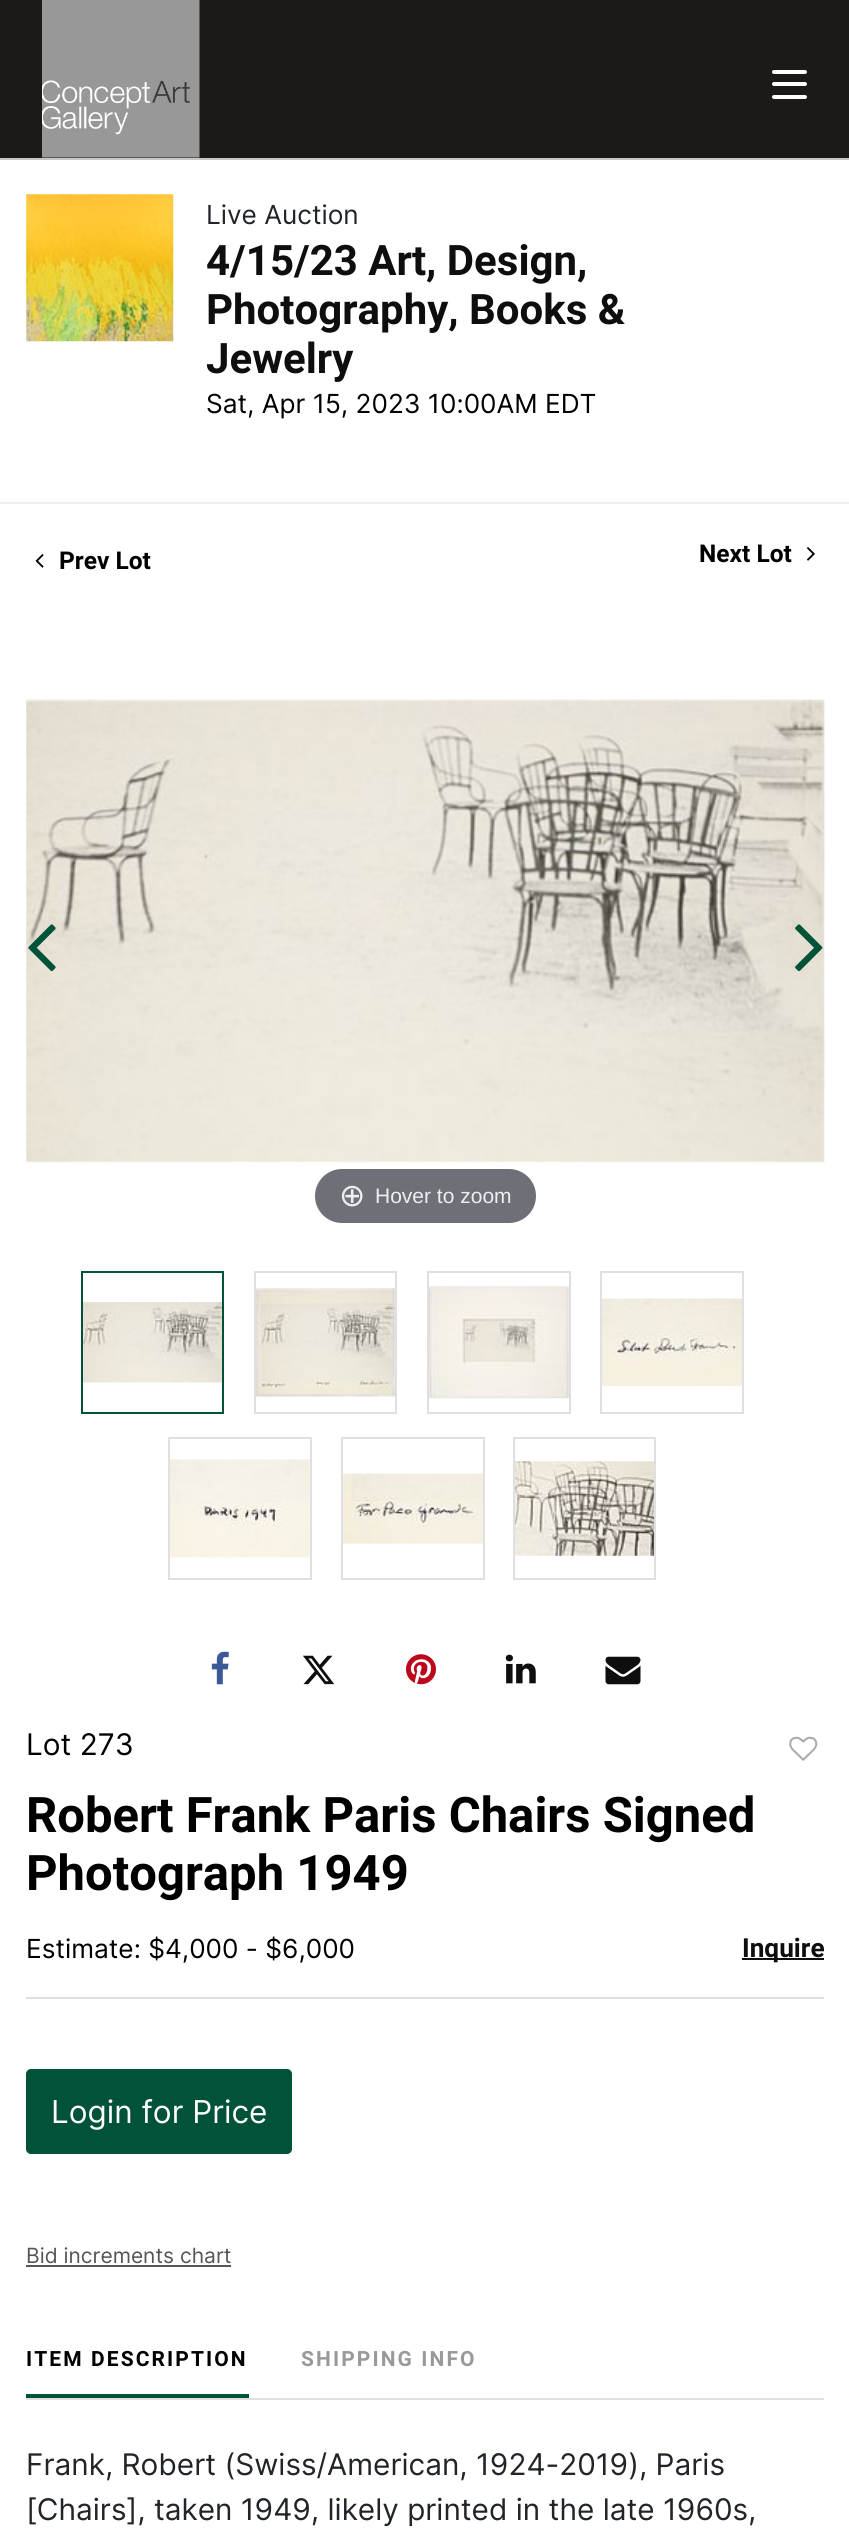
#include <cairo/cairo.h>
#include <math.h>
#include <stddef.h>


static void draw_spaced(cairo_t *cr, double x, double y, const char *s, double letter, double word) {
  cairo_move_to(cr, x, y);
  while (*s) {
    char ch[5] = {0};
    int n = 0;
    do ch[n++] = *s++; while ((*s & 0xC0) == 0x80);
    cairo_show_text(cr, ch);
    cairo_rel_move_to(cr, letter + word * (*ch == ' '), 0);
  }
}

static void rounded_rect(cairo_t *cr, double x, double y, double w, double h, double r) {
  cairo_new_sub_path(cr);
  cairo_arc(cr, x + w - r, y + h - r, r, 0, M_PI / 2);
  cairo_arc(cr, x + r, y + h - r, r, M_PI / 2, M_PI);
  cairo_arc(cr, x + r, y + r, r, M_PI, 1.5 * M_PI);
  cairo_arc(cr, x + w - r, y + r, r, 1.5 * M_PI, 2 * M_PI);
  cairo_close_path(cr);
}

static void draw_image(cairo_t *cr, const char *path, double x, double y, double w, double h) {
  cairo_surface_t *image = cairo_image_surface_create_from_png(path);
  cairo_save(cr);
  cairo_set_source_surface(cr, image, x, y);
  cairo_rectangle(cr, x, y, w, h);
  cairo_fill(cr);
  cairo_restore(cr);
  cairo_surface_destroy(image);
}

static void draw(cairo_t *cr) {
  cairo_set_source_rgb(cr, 1, 1, 1);
  cairo_paint(cr);
  cairo_set_source_rgb(cr, 28 / 255.0, 25 / 255.0, 23 / 255.0);
  cairo_rectangle(cr, 0, 0, 849, 158);
  cairo_fill(cr);
  cairo_set_source_rgb(cr, 201 / 255.0, 198 / 255.0, 198 / 255.0);
  cairo_rectangle(cr, 0, 158, 849, 2);
  cairo_fill(cr);
  draw_image(cr, "images/1.png", 42, 0, 158, 158);
  cairo_set_source_rgb(cr, 1, 1, 1);
  rounded_rect(cr, 772, 70, 35, 4, 2);
  cairo_fill(cr);
  rounded_rect(cr, 772, 82, 35, 4, 2);
  cairo_fill(cr);
  rounded_rect(cr, 772, 95, 35, 4, 2);
  cairo_fill(cr);
  draw_image(cr, "images/2.png", 26, 194, 148, 148);
  cairo_set_source_rgb(cr, 238 / 255.0, 238 / 255.0, 238 / 255.0);
  cairo_rectangle(cr, 0, 502, 849, 2);
  cairo_fill(cr);
  draw_image(cr, "images/3.png", 35, 554, 9, 14);
  draw_image(cr, "images/4.png", 807, 547, 8, 14);
  draw_image(cr, "images/7.png", 26, 699, 799, 464);
  draw_image(cr, "images/5.png", 28, 924, 28, 48);
  draw_image(cr, "images/6.png", 795, 924, 28, 48);
  cairo_set_source_rgb(cr, 111 / 255.0, 112 / 255.0, 119 / 255.0);
  rounded_rect(cr, 315, 1169, 221, 54, 27);
  cairo_fill(cr);
  draw_image(cr, "images/8.png", 83, 1302, 139, 81);
  cairo_rectangle(cr, 82, 1272, 141, 141);
  cairo_set_source_rgb(cr, 0, 82 / 255.0, 57 / 255.0);
  cairo_stroke(cr);
  draw_image(cr, "images/9.png", 256, 1288, 139, 109);
  cairo_rectangle(cr, 255, 1272, 141, 141);
  cairo_set_source_rgb(cr, 224 / 255.0, 224 / 255.0, 224 / 255.0);
  cairo_stroke(cr);
  draw_image(cr, "images/10.png", 429, 1286, 140, 113);
  cairo_rectangle(cr, 428, 1272, 142, 141);
  cairo_stroke(cr);
  draw_image(cr, "images/11.png", 602, 1298, 140, 88);
  cairo_rectangle(cr, 601, 1272, 142, 141);
  cairo_stroke(cr);
  draw_image(cr, "images/12.png", 170, 1459, 140, 99);
  cairo_rectangle(cr, 169, 1438, 142, 141);
  cairo_stroke(cr);
  draw_image(cr, "images/13.png", 343, 1473, 140, 71);
  cairo_rectangle(cr, 342, 1438, 142, 141);
  cairo_stroke(cr);
  draw_image(cr, "images/14.png", 515, 1461, 139, 95);
  cairo_rectangle(cr, 514, 1438, 141, 141);
  cairo_stroke(cr);
  draw_image(cr, "images/15.png", 211, 1651, 18, 34);
  draw_image(cr, "images/16.png", 303, 1655, 32, 30);
  draw_image(cr, "images/17.png", 406, 1654, 30, 31);
  draw_image(cr, "images/18.png", 505, 1654, 31, 30);
  draw_image(cr, "images/19.png", 605, 1656, 36, 29);
  draw_image(cr, "images/20.png", 789, 1736, 29, 25);
  cairo_rectangle(cr, 26, 1997, 798, 2);
  cairo_fill(cr);
  cairo_set_source_rgb(cr, 14 / 255.0, 14 / 255.0, 14 / 255.0);
  cairo_rectangle(cr, 742, 1958, 82, 2);
  cairo_fill(cr);
  cairo_set_source_rgb(cr, 0, 82 / 255.0, 57 / 255.0);
  rounded_rect(cr, 26, 2069, 266, 85, 5);
  cairo_fill(cr);
  cairo_set_source_rgb(cr, 85 / 255.0, 85 / 255.0, 85 / 255.0);
  cairo_rectangle(cr, 26, 2265, 205, 2);
  cairo_fill(cr);
  cairo_set_source_rgb(cr, 224 / 255.0, 224 / 255.0, 224 / 255.0);
  cairo_rectangle(cr, 26, 2398, 798, 2);
  cairo_fill(cr);
  cairo_set_source_rgb(cr, 0, 82 / 255.0, 57 / 255.0);
  cairo_rectangle(cr, 26, 2394, 223, 4);
  cairo_fill(cr);
  cairo_select_font_face(cr, "Inter", CAIRO_FONT_SLANT_NORMAL, CAIRO_FONT_WEIGHT_NORMAL);
  cairo_set_font_size(cr, 26.25);
  cairo_set_source_rgb(cr, 33 / 255.0, 37 / 255.0, 41 / 255.0);
  cairo_move_to(cr, 206, 224);
  cairo_show_text(cr, "Live Auction");
  cairo_select_font_face(cr, "Roboto", CAIRO_FONT_SLANT_NORMAL, CAIRO_FONT_WEIGHT_BOLD);
  cairo_set_font_size(cr, 42);
  cairo_set_source_rgb(cr, 14 / 255.0, 14 / 255.0, 14 / 255.0);
  cairo_move_to(cr, 206, 275);
  cairo_show_text(cr, "4/15/23 Art, Design,");
  cairo_move_to(cr, 206, 324);
  cairo_show_text(cr, "Photography, Books &");
  cairo_move_to(cr, 206, 373);
  cairo_show_text(cr, "Jewelry");
  cairo_select_font_face(cr, "Inter", CAIRO_FONT_SLANT_NORMAL, CAIRO_FONT_WEIGHT_NORMAL);
  cairo_set_font_size(cr, 26.25);
  cairo_set_source_rgb(cr, 0, 0, 0);
  cairo_move_to(cr, 206, 413);
  cairo_show_text(cr, "Sat, Apr 15, 2023 10:00AM EDT");
  cairo_select_font_face(cr, "Roboto", CAIRO_FONT_SLANT_NORMAL, CAIRO_FONT_WEIGHT_BOLD);
  cairo_set_font_size(cr, 24.5);
  cairo_move_to(cr, 59, 569);
  cairo_show_text(cr, "Prev Lot");
  cairo_move_to(cr, 699, 562);
  cairo_show_text(cr, "Next Lot");
  cairo_select_font_face(cr, "DejaVu Sans", CAIRO_FONT_SLANT_NORMAL, CAIRO_FONT_WEIGHT_NORMAL);
  cairo_set_font_size(cr, 31.5);
  cairo_set_source_rgb(cr, 238 / 255.0, 238 / 255.0, 238 / 255.0);
  cairo_move_to(cr, 339, 1206);
  cairo_show_text(cr, "⊕");
  cairo_select_font_face(cr, "Liberation Sans", CAIRO_FONT_SLANT_NORMAL, CAIRO_FONT_WEIGHT_NORMAL);
  cairo_set_font_size(cr, 21);
  cairo_move_to(cr, 375, 1203);
  cairo_show_text(cr, "Hover to zoom");
  cairo_select_font_face(cr, "Inter", CAIRO_FONT_SLANT_NORMAL, CAIRO_FONT_WEIGHT_NORMAL);
  cairo_set_font_size(cr, 29.75);
  cairo_set_source_rgb(cr, 0, 0, 0);
  cairo_move_to(cr, 26, 1755);
  cairo_show_text(cr, "Lot 273");
  cairo_select_font_face(cr, "Roboto", CAIRO_FONT_SLANT_NORMAL, CAIRO_FONT_WEIGHT_BOLD);
  cairo_set_font_size(cr, 49);
  cairo_move_to(cr, 26, 1832);
  cairo_show_text(cr, "Robert Frank Paris Chairs Signed");
  cairo_move_to(cr, 26, 1890);
  cairo_show_text(cr, "Photograph 1949");
  cairo_select_font_face(cr, "Inter", CAIRO_FONT_SLANT_NORMAL, CAIRO_FONT_WEIGHT_NORMAL);
  cairo_set_font_size(cr, 26.25);
  cairo_move_to(cr, 26, 1958);
  cairo_show_text(cr, "Estimate: $4,000 - $6,000");
  cairo_select_font_face(cr, "Roboto", CAIRO_FONT_SLANT_NORMAL, CAIRO_FONT_WEIGHT_BOLD);
  cairo_set_source_rgb(cr, 14 / 255.0, 14 / 255.0, 14 / 255.0);
  cairo_move_to(cr, 742, 1957);
  cairo_show_text(cr, "Inquire");
  cairo_select_font_face(cr, "Inter", CAIRO_FONT_SLANT_NORMAL, CAIRO_FONT_WEIGHT_NORMAL);
  cairo_set_font_size(cr, 31.5);
  cairo_set_source_rgb(cr, 1, 1, 1);
  cairo_move_to(cr, 51, 2123);
  cairo_show_text(cr, "Login for Price");
  cairo_set_font_size(cr, 21);
  cairo_set_source_rgb(cr, 85 / 255.0, 85 / 255.0, 85 / 255.0);
  cairo_move_to(cr, 26, 2263);
  cairo_show_text(cr, "Bid increments chart");
  cairo_select_font_face(cr, "Roboto", CAIRO_FONT_SLANT_NORMAL, CAIRO_FONT_WEIGHT_BOLD);
  cairo_set_source_rgb(cr, 0, 0, 0);
  draw_spaced(cr, 26, 2366, "ITEM DESCRIPTION", 2.1, 0);
  cairo_set_source_rgb(cr, 153 / 255.0, 153 / 255.0, 153 / 255.0);
  draw_spaced(cr, 301, 2366, "SHIPPING INFO", 2.1, 0);
  cairo_select_font_face(cr, "Inter", CAIRO_FONT_SLANT_NORMAL, CAIRO_FONT_WEIGHT_NORMAL);
  cairo_set_font_size(cr, 29.75);
  cairo_set_source_rgb(cr, 33 / 255.0, 37 / 255.0, 41 / 255.0);
  cairo_move_to(cr, 26, 2475);
  cairo_show_text(cr, "Frank, Robert (Swiss/American, 1924-2019), Paris");
  cairo_move_to(cr, 26, 2520);
  cairo_show_text(cr, "[Chairs], taken 1949, likely printed in the late 1960s,");
}

int main(void) {
  cairo_surface_t *surface = cairo_image_surface_create(CAIRO_FORMAT_RGB24, 849, 2529);
  cairo_t *cr = cairo_create(surface);
  cairo_font_options_t *options = cairo_font_options_create();
  cairo_font_options_set_hint_metrics(options, CAIRO_HINT_METRICS_OFF);
  cairo_font_options_set_hint_style(options, CAIRO_HINT_STYLE_NONE);
  cairo_set_font_options(cr, options);
  cairo_set_miter_limit(cr, 4);
  draw(cr);
  cairo_surface_write_to_png(surface, "out.png");
  cairo_font_options_destroy(options);
  cairo_destroy(cr);
  cairo_surface_destroy(surface);
  return 0;
}
